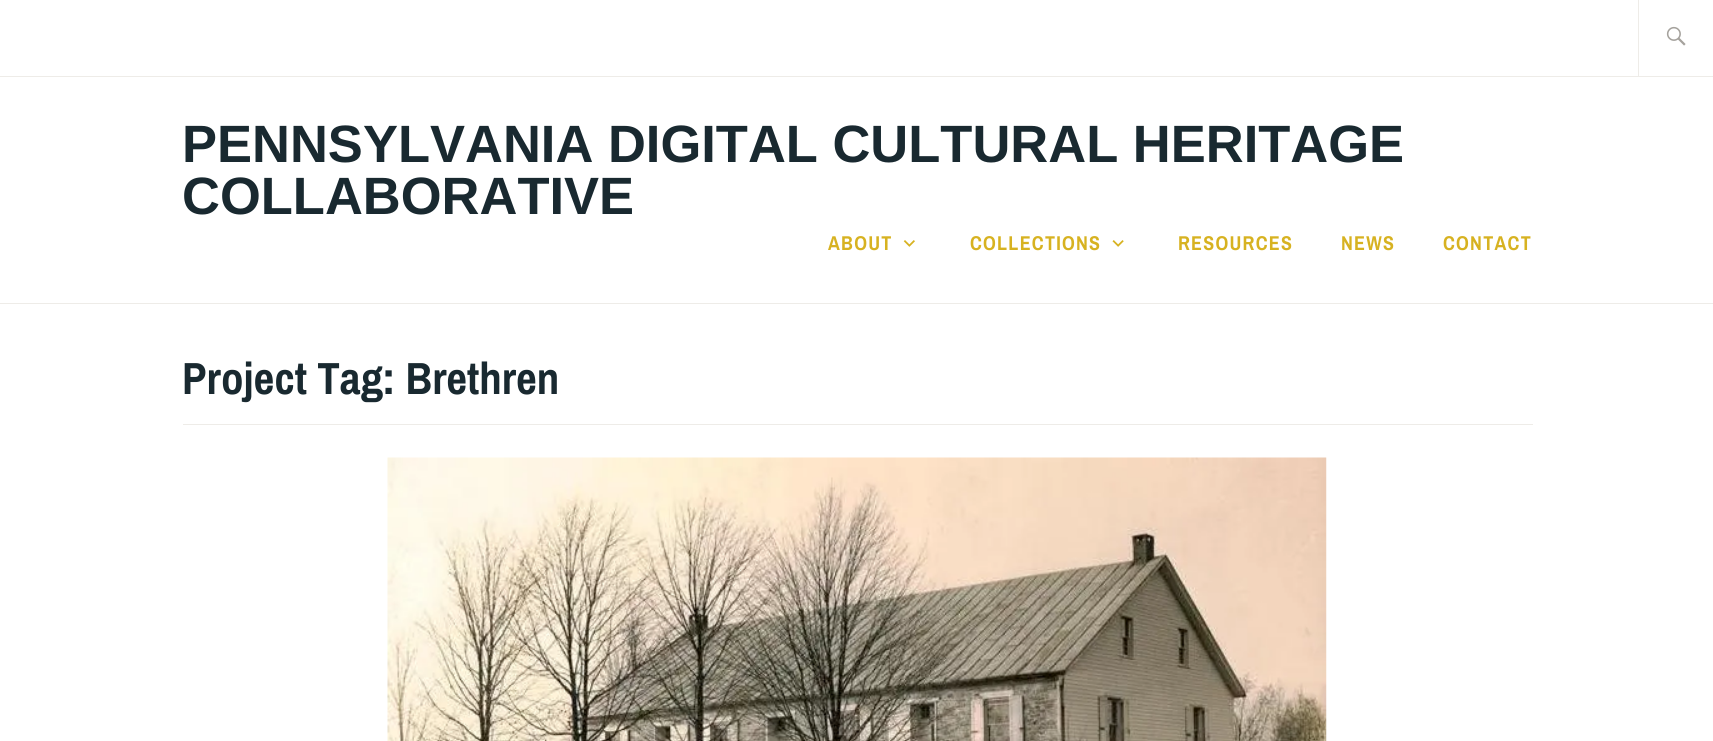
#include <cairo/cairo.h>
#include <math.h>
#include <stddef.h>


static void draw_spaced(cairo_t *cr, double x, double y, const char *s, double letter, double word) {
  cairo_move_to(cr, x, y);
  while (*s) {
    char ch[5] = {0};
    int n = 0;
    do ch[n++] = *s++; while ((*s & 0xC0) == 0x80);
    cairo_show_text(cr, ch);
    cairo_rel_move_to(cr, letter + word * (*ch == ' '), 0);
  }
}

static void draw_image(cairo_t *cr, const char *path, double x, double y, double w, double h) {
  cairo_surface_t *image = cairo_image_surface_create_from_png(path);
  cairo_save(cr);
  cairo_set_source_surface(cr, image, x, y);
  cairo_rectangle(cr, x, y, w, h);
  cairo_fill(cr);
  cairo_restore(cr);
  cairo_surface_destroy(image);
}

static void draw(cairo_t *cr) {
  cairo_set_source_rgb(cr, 1, 1, 1);
  cairo_paint(cr);
  cairo_set_source_rgb(cr, 238 / 255.0, 236 / 255.0, 232 / 255.0);
  cairo_rectangle(cr, 0, 303, 1713, 1);
  cairo_fill(cr);
  cairo_rectangle(cr, 0, 76, 1713, 1);
  cairo_fill(cr);
  cairo_rectangle(cr, 1638, 0, 1, 76);
  cairo_fill(cr);
  draw_image(cr, "images/1.png", 1666, 26, 20, 20);
  draw_image(cr, "images/2.png", 903, 240, 12, 7);
  draw_image(cr, "images/3.png", 1112, 240, 12, 7);
  cairo_rectangle(cr, 183, 424, 1350, 1);
  cairo_fill(cr);
  draw_image(cr, "images/4.png", 387, 457, 940, 284);
  cairo_select_font_face(cr, "Liberation Sans", CAIRO_FONT_SLANT_NORMAL, CAIRO_FONT_WEIGHT_BOLD);
  cairo_set_font_size(cr, 52.5);
  cairo_set_source_rgb(cr, 25 / 255.0, 41 / 255.0, 48 / 255.0);
  cairo_move_to(cr, 182, 162);
  cairo_show_text(cr, "PENNSYLVANIA DIGITAL CULTURAL HERITAGE");
  cairo_move_to(cr, 182, 214);
  cairo_show_text(cr, "COLLABORATIVE");
  cairo_select_font_face(cr, "Archivo Narrow", CAIRO_FONT_SLANT_NORMAL, CAIRO_FONT_WEIGHT_BOLD);
  cairo_set_font_size(cr, 20);
  cairo_set_source_rgb(cr, 215 / 255.0, 178 / 255.0, 33 / 255.0);
  draw_spaced(cr, 828, 250, "ABOUT", 1.25, 0);
  draw_spaced(cr, 970, 250, "COLLECTIONS", 1.25, 0);
  draw_spaced(cr, 1178, 250, "RESOURCES", 1.25, 0);
  draw_spaced(cr, 1341, 250, "NEWS", 1.25, 0);
  draw_spaced(cr, 1443, 250, "CONTACT", 1.25, 0);
  cairo_set_font_size(cr, 45);
  cairo_set_source_rgb(cr, 25 / 255.0, 41 / 255.0, 48 / 255.0);
  cairo_move_to(cr, 182, 394);
  cairo_show_text(cr, "Project Tag: Brethren");
}

int main(void) {
  cairo_surface_t *surface = cairo_image_surface_create(CAIRO_FORMAT_RGB24, 1713, 741);
  cairo_t *cr = cairo_create(surface);
  cairo_font_options_t *options = cairo_font_options_create();
  cairo_font_options_set_hint_metrics(options, CAIRO_HINT_METRICS_OFF);
  cairo_font_options_set_hint_style(options, CAIRO_HINT_STYLE_NONE);
  cairo_set_font_options(cr, options);
  cairo_set_miter_limit(cr, 4);
  draw(cr);
  cairo_surface_write_to_png(surface, "out.png");
  cairo_font_options_destroy(options);
  cairo_destroy(cr);
  cairo_surface_destroy(surface);
  return 0;
}
